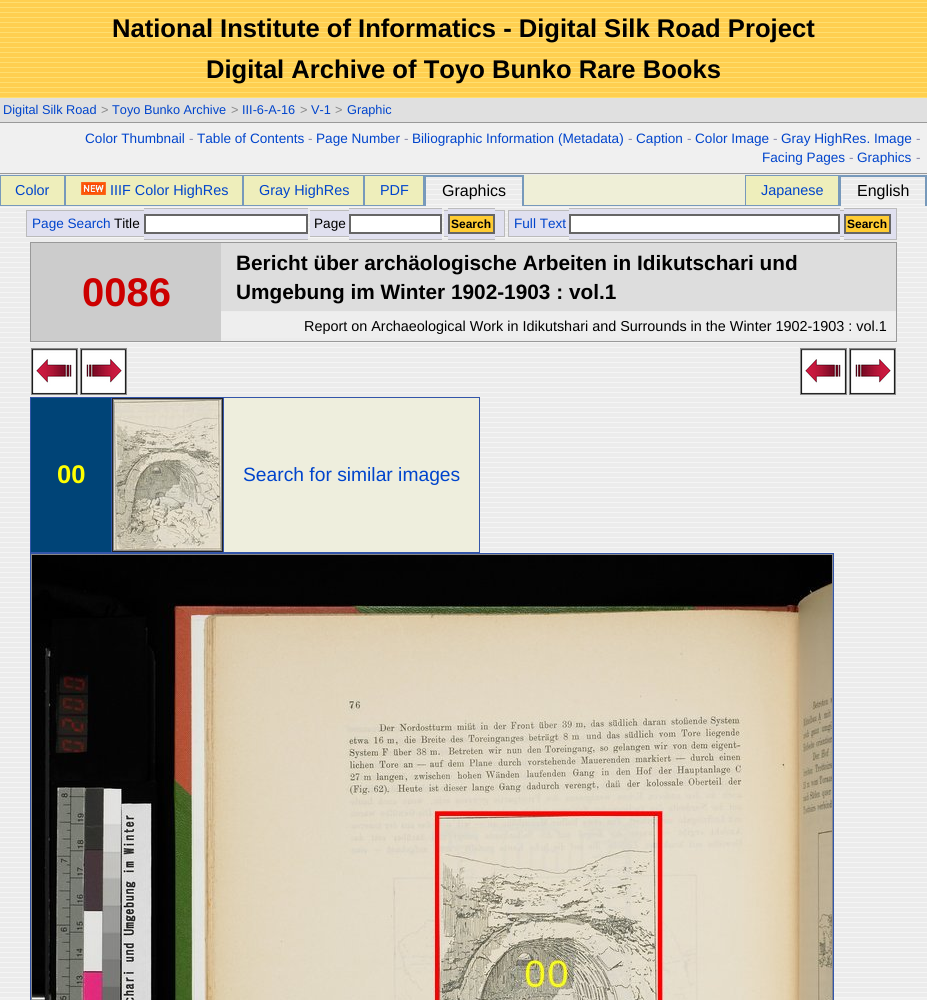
#include <cairo/cairo.h>
#include <math.h>
#include <stddef.h>


static void draw_image(cairo_t *cr, const char *path, double x, double y, double w, double h) {
  cairo_surface_t *image = cairo_image_surface_create_from_png(path);
  cairo_save(cr);
  cairo_set_source_surface(cr, image, x, y);
  cairo_rectangle(cr, x, y, w, h);
  cairo_fill(cr);
  cairo_restore(cr);
  cairo_surface_destroy(image);
}

static void draw(cairo_t *cr) {
  cairo_set_source_rgb(cr, 240 / 255.0, 240 / 255.0, 240 / 255.0);
  cairo_paint(cr);
  draw_image(cr, "images/1.png", 0, 174, 927, 824);
  cairo_set_source_rgb(cr, 224 / 255.0, 224 / 255.0, 224 / 255.0);
  cairo_rectangle(cr, 0, 98, 927, 24);
  cairo_fill(cr);
  draw_image(cr, "images/2.png", 0, 0, 927, 98);
  cairo_set_source_rgb(cr, 153 / 255.0, 153 / 255.0, 153 / 255.0);
  cairo_rectangle(cr, 0, 122, 927, 1);
  cairo_fill(cr);
  cairo_rectangle(cr, 0, 173, 927, 1);
  cairo_fill(cr);
  cairo_set_source_rgb(cr, 239 / 255.0, 239 / 255.0, 215 / 255.0);
  cairo_rectangle(cr, 524, 175, 221, 30);
  cairo_fill(cr);
  cairo_set_source_rgb(cr, 238 / 255.0, 238 / 255.0, 187 / 255.0);
  cairo_rectangle(cr, 0.5, 175.5, 64, 30);
  cairo_fill_preserve(cr);
  cairo_set_source_rgb(cr, 119 / 255.0, 153 / 255.0, 187 / 255.0);
  cairo_set_line_width(cr, 1);
  cairo_stroke(cr);
  cairo_set_source_rgb(cr, 238 / 255.0, 238 / 255.0, 187 / 255.0);
  cairo_rectangle(cr, 65.5, 175.5, 177, 30);
  cairo_fill_preserve(cr);
  cairo_set_source_rgb(cr, 119 / 255.0, 153 / 255.0, 187 / 255.0);
  cairo_stroke(cr);
  draw_image(cr, "images/3.png", 81, 182, 25, 13);
  cairo_set_source_rgb(cr, 238 / 255.0, 238 / 255.0, 187 / 255.0);
  cairo_rectangle(cr, 243.5, 175.5, 120, 30);
  cairo_fill_preserve(cr);
  cairo_set_source_rgb(cr, 119 / 255.0, 153 / 255.0, 187 / 255.0);
  cairo_stroke(cr);
  cairo_set_source_rgb(cr, 238 / 255.0, 238 / 255.0, 187 / 255.0);
  cairo_rectangle(cr, 364.5, 175.5, 59, 30);
  cairo_fill_preserve(cr);
  cairo_set_source_rgb(cr, 119 / 255.0, 153 / 255.0, 187 / 255.0);
  cairo_stroke(cr);
  draw_image(cr, "images/4.png", 426, 177, 96, 29);
  cairo_rectangle(cr, 424, 175, 100, 2);
  cairo_fill(cr);
  cairo_rectangle(cr, 522, 175, 2, 31);
  cairo_fill(cr);
  cairo_rectangle(cr, 424, 175, 2, 31);
  cairo_fill(cr);
  cairo_set_source_rgb(cr, 238 / 255.0, 238 / 255.0, 187 / 255.0);
  cairo_rectangle(cr, 745.5, 175.5, 93, 30);
  cairo_fill_preserve(cr);
  cairo_set_source_rgb(cr, 119 / 255.0, 153 / 255.0, 187 / 255.0);
  cairo_stroke(cr);
  draw_image(cr, "images/5.png", 841, 177, 84, 29);
  cairo_rectangle(cr, 839, 175, 88, 2);
  cairo_fill(cr);
  cairo_rectangle(cr, 925, 175, 2, 31);
  cairo_fill(cr);
  cairo_rectangle(cr, 839, 175, 2, 31);
  cairo_fill(cr);
  cairo_rectangle(cr, 524, 205, 221, 1);
  cairo_fill(cr);
  cairo_set_source_rgb(cr, 224 / 255.0, 224 / 255.0, 239 / 255.0);
  cairo_rectangle(cr, 27, 211, 84, 25);
  cairo_fill(cr);
  cairo_set_source_rgb(cr, 187 / 255.0, 187 / 255.0, 187 / 255.0);
  cairo_rectangle(cr, 26, 210, 85, 1);
  cairo_fill(cr);
  cairo_rectangle(cr, 26, 236, 85, 1);
  cairo_fill(cr);
  cairo_rectangle(cr, 26, 210, 1, 27);
  cairo_fill(cr);
  cairo_set_source_rgb(cr, 224 / 255.0, 224 / 255.0, 239 / 255.0);
  cairo_rectangle(cr, 111, 210, 3, 27);
  cairo_fill(cr);
  cairo_set_source_rgb(cr, 187 / 255.0, 187 / 255.0, 187 / 255.0);
  cairo_rectangle(cr, 111, 210, 33, 1);
  cairo_fill(cr);
  cairo_rectangle(cr, 111, 236, 33, 1);
  cairo_fill(cr);
  cairo_set_source_rgb(cr, 224 / 255.0, 224 / 255.0, 239 / 255.0);
  cairo_rectangle(cr, 114, 211, 30, 25);
  cairo_fill(cr);
  cairo_rectangle(cr, 144, 209, 164, 30);
  cairo_fill(cr);
  cairo_set_source_rgb(cr, 187 / 255.0, 187 / 255.0, 187 / 255.0);
  cairo_rectangle(cr, 144, 208, 164, 1);
  cairo_fill(cr);
  cairo_rectangle(cr, 144, 239, 164, 1);
  cairo_fill(cr);
  cairo_set_source_rgb(cr, 224 / 255.0, 224 / 255.0, 239 / 255.0);
  cairo_rectangle(cr, 310, 211, 39, 25);
  cairo_fill(cr);
  cairo_set_source_rgb(cr, 187 / 255.0, 187 / 255.0, 187 / 255.0);
  cairo_rectangle(cr, 310, 210, 39, 1);
  cairo_fill(cr);
  cairo_rectangle(cr, 310, 236, 39, 1);
  cairo_fill(cr);
  cairo_set_source_rgb(cr, 224 / 255.0, 224 / 255.0, 239 / 255.0);
  cairo_rectangle(cr, 349, 209, 93, 30);
  cairo_fill(cr);
  cairo_set_source_rgb(cr, 187 / 255.0, 187 / 255.0, 187 / 255.0);
  cairo_rectangle(cr, 349, 208, 93, 1);
  cairo_fill(cr);
  cairo_rectangle(cr, 349, 239, 93, 1);
  cairo_fill(cr);
  cairo_set_source_rgb(cr, 224 / 255.0, 224 / 255.0, 239 / 255.0);
  cairo_rectangle(cr, 444, 210, 4, 27);
  cairo_fill(cr);
  cairo_set_source_rgb(cr, 187 / 255.0, 187 / 255.0, 187 / 255.0);
  cairo_rectangle(cr, 444, 210, 4, 1);
  cairo_fill(cr);
  cairo_rectangle(cr, 444, 236, 4, 1);
  cairo_fill(cr);
  cairo_set_source_rgb(cr, 224 / 255.0, 224 / 255.0, 239 / 255.0);
  cairo_rectangle(cr, 448, 209, 47, 30);
  cairo_fill(cr);
  cairo_set_source_rgb(cr, 187 / 255.0, 187 / 255.0, 187 / 255.0);
  cairo_rectangle(cr, 448, 208, 47, 1);
  cairo_fill(cr);
  cairo_rectangle(cr, 448, 239, 47, 1);
  cairo_fill(cr);
  cairo_set_source_rgb(cr, 224 / 255.0, 224 / 255.0, 239 / 255.0);
  cairo_rectangle(cr, 495, 211, 9, 25);
  cairo_fill(cr);
  cairo_set_source_rgb(cr, 187 / 255.0, 187 / 255.0, 187 / 255.0);
  cairo_rectangle(cr, 495, 210, 10, 1);
  cairo_fill(cr);
  cairo_rectangle(cr, 504, 210, 1, 27);
  cairo_fill(cr);
  cairo_rectangle(cr, 495, 236, 10, 1);
  cairo_fill(cr);
  cairo_set_source_rgb(cr, 1, 1, 1);
  cairo_rectangle(cr, 145, 215, 162, 18);
  cairo_fill_preserve(cr);
  cairo_set_source_rgb(cr, 102 / 255.0, 102 / 255.0, 102 / 255.0);
  cairo_set_line_width(cr, 2);
  cairo_stroke(cr);
  cairo_set_source_rgb(cr, 1, 1, 1);
  cairo_rectangle(cr, 350, 215, 91, 18);
  cairo_fill_preserve(cr);
  cairo_set_source_rgb(cr, 102 / 255.0, 102 / 255.0, 102 / 255.0);
  cairo_stroke(cr);
  cairo_set_source_rgb(cr, 1, 204 / 255.0, 51 / 255.0);
  cairo_rectangle(cr, 449, 215, 45, 18);
  cairo_fill_preserve(cr);
  cairo_set_source_rgb(cr, 102 / 255.0, 102 / 255.0, 102 / 255.0);
  cairo_stroke(cr);
  cairo_set_source_rgb(cr, 224 / 255.0, 224 / 255.0, 239 / 255.0);
  cairo_rectangle(cr, 509, 211, 57, 25);
  cairo_fill(cr);
  cairo_set_source_rgb(cr, 187 / 255.0, 187 / 255.0, 187 / 255.0);
  cairo_rectangle(cr, 508, 210, 58, 1);
  cairo_fill(cr);
  cairo_rectangle(cr, 508, 236, 58, 1);
  cairo_fill(cr);
  cairo_rectangle(cr, 508, 210, 1, 27);
  cairo_fill(cr);
  cairo_set_source_rgb(cr, 224 / 255.0, 224 / 255.0, 239 / 255.0);
  cairo_rectangle(cr, 566, 210, 3, 27);
  cairo_fill(cr);
  cairo_set_source_rgb(cr, 187 / 255.0, 187 / 255.0, 187 / 255.0);
  cairo_rectangle(cr, 566, 210, 3, 1);
  cairo_fill(cr);
  cairo_rectangle(cr, 566, 236, 3, 1);
  cairo_fill(cr);
  cairo_set_source_rgb(cr, 224 / 255.0, 224 / 255.0, 239 / 255.0);
  cairo_rectangle(cr, 569, 209, 271, 30);
  cairo_fill(cr);
  cairo_set_source_rgb(cr, 187 / 255.0, 187 / 255.0, 187 / 255.0);
  cairo_rectangle(cr, 569, 208, 271, 1);
  cairo_fill(cr);
  cairo_rectangle(cr, 569, 239, 271, 1);
  cairo_fill(cr);
  cairo_set_source_rgb(cr, 224 / 255.0, 224 / 255.0, 239 / 255.0);
  cairo_rectangle(cr, 840, 210, 4, 27);
  cairo_fill(cr);
  cairo_set_source_rgb(cr, 187 / 255.0, 187 / 255.0, 187 / 255.0);
  cairo_rectangle(cr, 840, 210, 4, 1);
  cairo_fill(cr);
  cairo_rectangle(cr, 840, 236, 4, 1);
  cairo_fill(cr);
  cairo_set_source_rgb(cr, 224 / 255.0, 224 / 255.0, 239 / 255.0);
  cairo_rectangle(cr, 844, 209, 52, 30);
  cairo_fill(cr);
  cairo_set_source_rgb(cr, 187 / 255.0, 187 / 255.0, 187 / 255.0);
  cairo_rectangle(cr, 844, 208, 53, 1);
  cairo_fill(cr);
  cairo_rectangle(cr, 896, 208, 1, 32);
  cairo_fill(cr);
  cairo_rectangle(cr, 844, 239, 53, 1);
  cairo_fill(cr);
  cairo_set_source_rgb(cr, 1, 1, 1);
  cairo_rectangle(cr, 570, 215, 269, 18);
  cairo_fill_preserve(cr);
  cairo_set_source_rgb(cr, 102 / 255.0, 102 / 255.0, 102 / 255.0);
  cairo_stroke(cr);
  cairo_set_source_rgb(cr, 1, 204 / 255.0, 51 / 255.0);
  cairo_rectangle(cr, 845, 215, 45, 18);
  cairo_fill_preserve(cr);
  cairo_set_source_rgb(cr, 102 / 255.0, 102 / 255.0, 102 / 255.0);
  cairo_stroke(cr);
  cairo_rectangle(cr, 30.5, 242.5, 866, 99);
  cairo_set_source_rgb(cr, 153 / 255.0, 153 / 255.0, 153 / 255.0);
  cairo_set_line_width(cr, 1);
  cairo_stroke(cr);
  cairo_set_source_rgb(cr, 204 / 255.0, 204 / 255.0, 204 / 255.0);
  cairo_rectangle(cr, 31, 243, 190, 98);
  cairo_fill(cr);
  cairo_set_source_rgb(cr, 221 / 255.0, 221 / 255.0, 221 / 255.0);
  cairo_rectangle(cr, 221, 243, 675, 68);
  cairo_fill(cr);
  cairo_set_source_rgb(cr, 238 / 255.0, 238 / 255.0, 238 / 255.0);
  cairo_rectangle(cr, 221, 312, 675, 26);
  cairo_fill(cr);
  cairo_rectangle(cr, 30, 347, 98, 46);
  cairo_fill(cr);
  cairo_rectangle(cr, 31.5, 348.5, 46, 46);
  cairo_set_source_rgb(cr, 136 / 255.0, 136 / 255.0, 136 / 255.0);
  cairo_stroke(cr);
  draw_image(cr, "images/6.png", 32, 349, 45, 45);
  cairo_set_source_rgb(cr, 238 / 255.0, 238 / 255.0, 238 / 255.0);
  cairo_rectangle(cr, 799, 347, 98, 46);
  cairo_fill(cr);
  cairo_rectangle(cr, 800.5, 348.5, 46, 46);
  cairo_set_source_rgb(cr, 136 / 255.0, 136 / 255.0, 136 / 255.0);
  cairo_stroke(cr);
  draw_image(cr, "images/6.png", 801, 349, 45, 45);
  cairo_rectangle(cr, 80.5, 348.5, 46, 46);
  cairo_stroke(cr);
  draw_image(cr, "images/7.png", 81, 349, 45, 45);
  cairo_rectangle(cr, 849.5, 348.5, 46, 46);
  cairo_stroke(cr);
  draw_image(cr, "images/7.png", 850, 349, 45, 45);
  cairo_set_source_rgb(cr, 51 / 255.0, 85 / 255.0, 170 / 255.0);
  cairo_rectangle(cr, 30, 397, 450, 156);
  cairo_fill(cr);
  cairo_set_source_rgb(cr, 0, 68 / 255.0, 119 / 255.0);
  cairo_rectangle(cr, 31, 398, 80, 154);
  cairo_fill(cr);
  cairo_set_source_rgb(cr, 34 / 255.0, 34 / 255.0, 34 / 255.0);
  cairo_rectangle(cr, 112, 398, 111, 154);
  cairo_fill(cr);
  cairo_rectangle(cr, 113.5, 399.5, 108, 151);
  cairo_set_source_rgb(cr, 136 / 255.0, 136 / 255.0, 136 / 255.0);
  cairo_stroke(cr);
  draw_image(cr, "images/8.png", 114, 400, 107, 150);
  cairo_set_source_rgb(cr, 238 / 255.0, 238 / 255.0, 221 / 255.0);
  cairo_rectangle(cr, 224, 398, 255, 154);
  cairo_fill(cr);
  cairo_set_source_rgb(cr, 51 / 255.0, 85 / 255.0, 170 / 255.0);
  cairo_rectangle(cr, 30, 553, 804, 447);
  cairo_fill(cr);
  cairo_rectangle(cr, 31.5, 554.5, 801, 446);
  cairo_set_source_rgb(cr, 136 / 255.0, 136 / 255.0, 136 / 255.0);
  cairo_stroke(cr);
  draw_image(cr, "images/9.png", 32, 555, 800, 445);
  cairo_select_font_face(cr, "Liberation Sans", CAIRO_FONT_SLANT_NORMAL, CAIRO_FONT_WEIGHT_BOLD);
  cairo_set_font_size(cr, 25.6);
  cairo_set_source_rgb(cr, 0, 0, 0);
  cairo_move_to(cr, 112, 37);
  cairo_show_text(cr, "National Institute of Informatics - Digital Silk Road Project");
  cairo_move_to(cr, 206, 78);
  cairo_show_text(cr, "Digital Archive of Toyo Bunko Rare Books");
  cairo_select_font_face(cr, "Liberation Sans", CAIRO_FONT_SLANT_NORMAL, CAIRO_FONT_WEIGHT_NORMAL);
  cairo_set_font_size(cr, 12.75);
  cairo_set_source_rgb(cr, 0, 68 / 255.0, 204 / 255.0);
  cairo_move_to(cr, 3, 114);
  cairo_show_text(cr, "Digital Silk Road");
  cairo_set_source_rgb(cr, 136 / 255.0, 136 / 255.0, 136 / 255.0);
  cairo_move_to(cr, 101, 114);
  cairo_show_text(cr, ">");
  cairo_set_source_rgb(cr, 0, 68 / 255.0, 204 / 255.0);
  cairo_move_to(cr, 112, 114);
  cairo_show_text(cr, "Toyo Bunko Archive");
  cairo_set_source_rgb(cr, 136 / 255.0, 136 / 255.0, 136 / 255.0);
  cairo_move_to(cr, 231, 114);
  cairo_show_text(cr, ">");
  cairo_set_source_rgb(cr, 0, 68 / 255.0, 204 / 255.0);
  cairo_move_to(cr, 242, 114);
  cairo_show_text(cr, "III-6-A-16");
  cairo_set_source_rgb(cr, 136 / 255.0, 136 / 255.0, 136 / 255.0);
  cairo_move_to(cr, 300, 114);
  cairo_show_text(cr, ">");
  cairo_set_source_rgb(cr, 0, 68 / 255.0, 204 / 255.0);
  cairo_move_to(cr, 311, 114);
  cairo_show_text(cr, "V-1");
  cairo_set_source_rgb(cr, 136 / 255.0, 136 / 255.0, 136 / 255.0);
  cairo_move_to(cr, 335, 114);
  cairo_show_text(cr, ">");
  cairo_set_source_rgb(cr, 0, 68 / 255.0, 204 / 255.0);
  cairo_move_to(cr, 347, 114);
  cairo_show_text(cr, "Graphic");
  cairo_set_font_size(cr, 13.6);
  cairo_move_to(cr, 85, 143);
  cairo_show_text(cr, "Color Thumbnail");
  cairo_set_source_rgb(cr, 136 / 255.0, 136 / 255.0, 170 / 255.0);
  cairo_move_to(cr, 189, 143);
  cairo_show_text(cr, "-");
  cairo_set_source_rgb(cr, 0, 68 / 255.0, 204 / 255.0);
  cairo_move_to(cr, 197, 143);
  cairo_show_text(cr, "Table of Contents");
  cairo_set_source_rgb(cr, 136 / 255.0, 136 / 255.0, 170 / 255.0);
  cairo_move_to(cr, 308, 143);
  cairo_show_text(cr, "-");
  cairo_set_source_rgb(cr, 0, 68 / 255.0, 204 / 255.0);
  cairo_move_to(cr, 316, 143);
  cairo_show_text(cr, "Page Number");
  cairo_set_source_rgb(cr, 136 / 255.0, 136 / 255.0, 170 / 255.0);
  cairo_move_to(cr, 404, 143);
  cairo_show_text(cr, "-");
  cairo_set_source_rgb(cr, 0, 68 / 255.0, 204 / 255.0);
  cairo_move_to(cr, 412, 143);
  cairo_show_text(cr, "Biliographic Information (Metadata)");
  cairo_set_source_rgb(cr, 136 / 255.0, 136 / 255.0, 170 / 255.0);
  cairo_move_to(cr, 628, 143);
  cairo_show_text(cr, "-");
  cairo_set_source_rgb(cr, 0, 68 / 255.0, 204 / 255.0);
  cairo_move_to(cr, 636, 143);
  cairo_show_text(cr, "Caption");
  cairo_set_source_rgb(cr, 136 / 255.0, 136 / 255.0, 170 / 255.0);
  cairo_move_to(cr, 687, 143);
  cairo_show_text(cr, "-");
  cairo_set_source_rgb(cr, 0, 68 / 255.0, 204 / 255.0);
  cairo_move_to(cr, 695, 143);
  cairo_show_text(cr, "Color Image");
  cairo_set_source_rgb(cr, 136 / 255.0, 136 / 255.0, 170 / 255.0);
  cairo_move_to(cr, 773, 143);
  cairo_show_text(cr, "-");
  cairo_set_source_rgb(cr, 0, 68 / 255.0, 204 / 255.0);
  cairo_move_to(cr, 781, 143);
  cairo_show_text(cr, "Gray HighRes. Image");
  cairo_set_source_rgb(cr, 136 / 255.0, 136 / 255.0, 170 / 255.0);
  cairo_move_to(cr, 916, 143);
  cairo_show_text(cr, "-");
  cairo_set_source_rgb(cr, 0, 68 / 255.0, 204 / 255.0);
  cairo_move_to(cr, 762, 162);
  cairo_show_text(cr, "Facing Pages");
  cairo_set_source_rgb(cr, 136 / 255.0, 136 / 255.0, 170 / 255.0);
  cairo_move_to(cr, 849, 162);
  cairo_show_text(cr, "-");
  cairo_set_source_rgb(cr, 0, 68 / 255.0, 204 / 255.0);
  cairo_move_to(cr, 857, 162);
  cairo_show_text(cr, "Graphics");
  cairo_set_source_rgb(cr, 136 / 255.0, 136 / 255.0, 170 / 255.0);
  cairo_move_to(cr, 916, 162);
  cairo_show_text(cr, "-");
  cairo_set_font_size(cr, 14.4);
  cairo_set_source_rgb(cr, 0, 68 / 255.0, 204 / 255.0);
  cairo_move_to(cr, 15, 195);
  cairo_show_text(cr, "Color");
  cairo_move_to(cr, 110, 195);
  cairo_show_text(cr, "IIIF Color HighRes");
  cairo_move_to(cr, 259, 195);
  cairo_show_text(cr, "Gray HighRes");
  cairo_move_to(cr, 380, 195);
  cairo_show_text(cr, "PDF");
  cairo_set_font_size(cr, 16);
  cairo_set_source_rgb(cr, 0, 0, 0);
  cairo_move_to(cr, 442, 196);
  cairo_show_text(cr, "Graphics");
  cairo_set_font_size(cr, 14.4);
  cairo_set_source_rgb(cr, 0, 68 / 255.0, 204 / 255.0);
  cairo_move_to(cr, 761, 195);
  cairo_show_text(cr, "Japanese");
  cairo_set_font_size(cr, 16);
  cairo_set_source_rgb(cr, 0, 0, 0);
  cairo_move_to(cr, 857, 196);
  cairo_show_text(cr, "English");
  cairo_set_font_size(cr, 13.6);
  cairo_set_source_rgb(cr, 0, 68 / 255.0, 204 / 255.0);
  cairo_move_to(cr, 32, 228);
  cairo_show_text(cr, "Page Search");
  cairo_set_source_rgb(cr, 0, 0, 0);
  cairo_move_to(cr, 114, 228);
  cairo_show_text(cr, "Title");
  cairo_move_to(cr, 314, 228);
  cairo_show_text(cr, "Page");
  cairo_select_font_face(cr, "Liberation Sans", CAIRO_FONT_SLANT_NORMAL, CAIRO_FONT_WEIGHT_BOLD);
  cairo_set_font_size(cr, 12);
  cairo_move_to(cr, 451, 228);
  cairo_show_text(cr, "Search");
  cairo_select_font_face(cr, "Liberation Sans", CAIRO_FONT_SLANT_NORMAL, CAIRO_FONT_WEIGHT_NORMAL);
  cairo_set_font_size(cr, 13.6);
  cairo_set_source_rgb(cr, 0, 68 / 255.0, 204 / 255.0);
  cairo_move_to(cr, 514, 228);
  cairo_show_text(cr, "Full Text");
  cairo_select_font_face(cr, "Liberation Sans", CAIRO_FONT_SLANT_NORMAL, CAIRO_FONT_WEIGHT_BOLD);
  cairo_set_font_size(cr, 12);
  cairo_set_source_rgb(cr, 0, 0, 0);
  cairo_move_to(cr, 847, 228);
  cairo_show_text(cr, "Search");
  cairo_set_font_size(cr, 40);
  cairo_set_source_rgb(cr, 204 / 255.0, 0, 0);
  cairo_move_to(cr, 82, 306);
  cairo_show_text(cr, "0086");
  cairo_set_font_size(cr, 20.8);
  cairo_set_source_rgb(cr, 0, 0, 0);
  cairo_move_to(cr, 236, 270);
  cairo_show_text(cr, "Bericht über archäologische Arbeiten in Idikutschari und");
  cairo_move_to(cr, 236, 299);
  cairo_show_text(cr, "Umgebung im Winter 1902-1903 : vol.1");
  cairo_select_font_face(cr, "Liberation Sans", CAIRO_FONT_SLANT_NORMAL, CAIRO_FONT_WEIGHT_NORMAL);
  cairo_set_font_size(cr, 14.4);
  cairo_move_to(cr, 304, 331);
  cairo_show_text(cr, "Report on Archaeological Work in Idikutshari and Surrounds in the Winter 1902-1903 : vol.1");
  cairo_select_font_face(cr, "Liberation Sans", CAIRO_FONT_SLANT_NORMAL, CAIRO_FONT_WEIGHT_BOLD);
  cairo_set_font_size(cr, 25.6);
  cairo_set_source_rgb(cr, 1, 1, 0);
  cairo_move_to(cr, 57, 483);
  cairo_show_text(cr, "00");
  cairo_select_font_face(cr, "Liberation Sans", CAIRO_FONT_SLANT_NORMAL, CAIRO_FONT_WEIGHT_NORMAL);
  cairo_set_font_size(cr, 19.25);
  cairo_set_source_rgb(cr, 0, 68 / 255.0, 204 / 255.0);
  cairo_move_to(cr, 243, 481);
  cairo_show_text(cr, "Search for similar images");
}

int main(void) {
  cairo_surface_t *surface = cairo_image_surface_create(CAIRO_FORMAT_RGB24, 927, 1000);
  cairo_t *cr = cairo_create(surface);
  cairo_font_options_t *options = cairo_font_options_create();
  cairo_font_options_set_hint_metrics(options, CAIRO_HINT_METRICS_OFF);
  cairo_font_options_set_hint_style(options, CAIRO_HINT_STYLE_NONE);
  cairo_set_font_options(cr, options);
  cairo_set_miter_limit(cr, 4);
  draw(cr);
  cairo_surface_write_to_png(surface, "out.png");
  cairo_font_options_destroy(options);
  cairo_destroy(cr);
  cairo_surface_destroy(surface);
  return 0;
}
